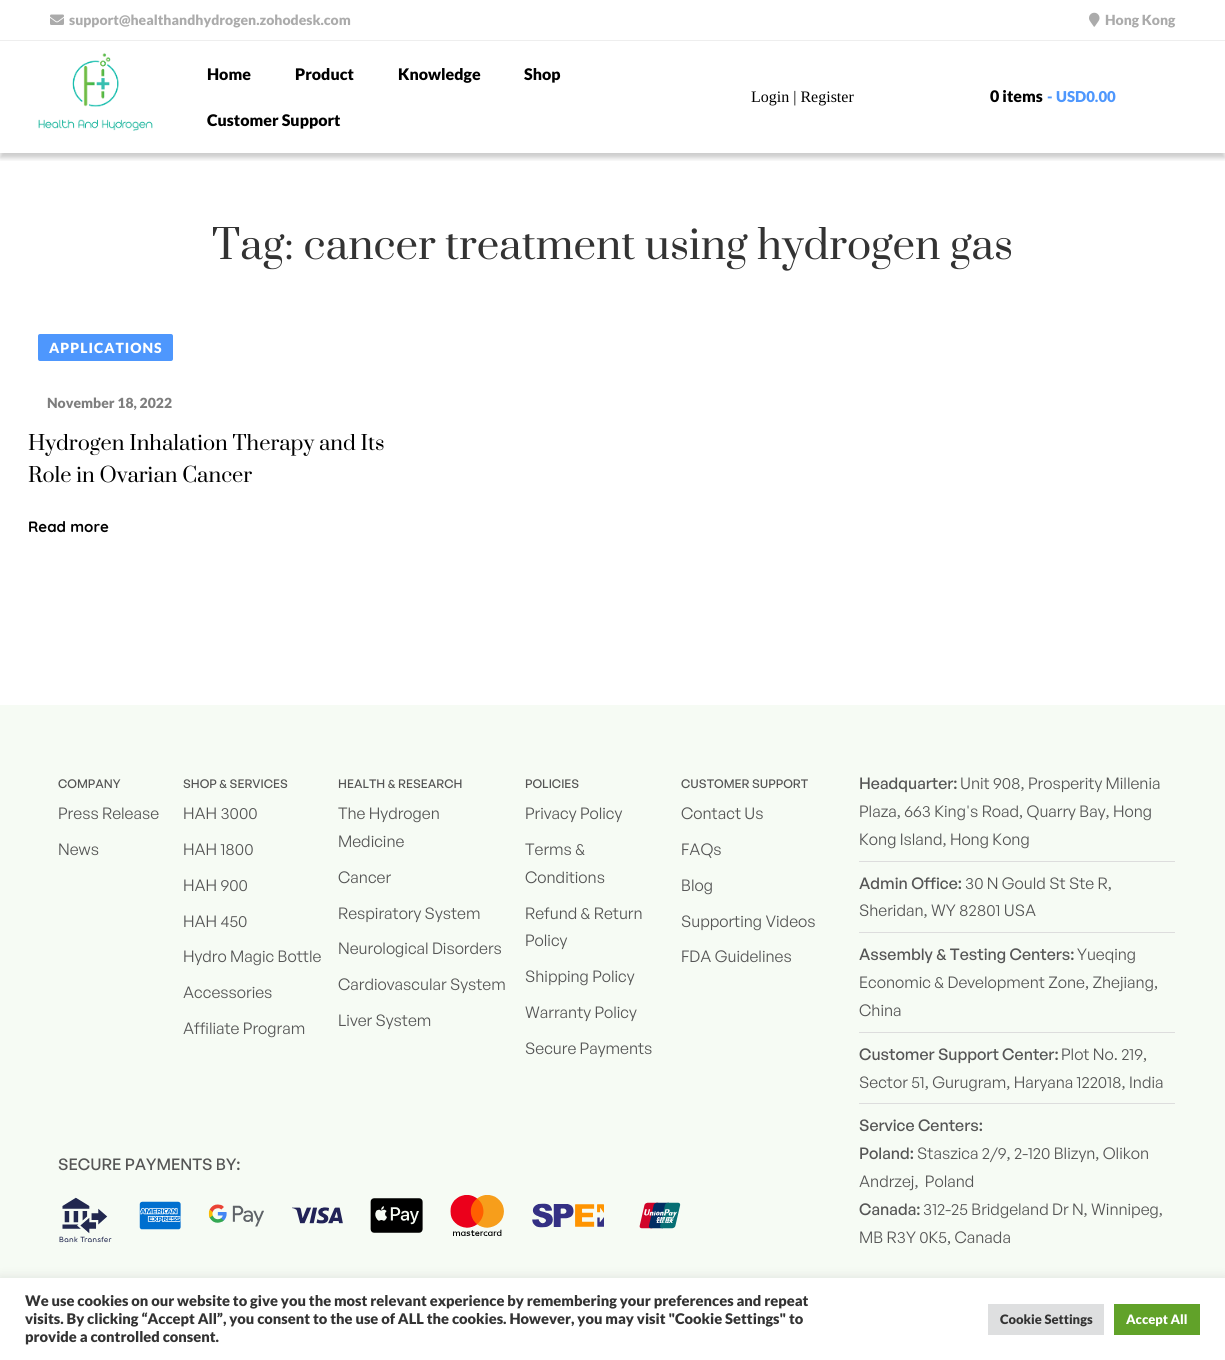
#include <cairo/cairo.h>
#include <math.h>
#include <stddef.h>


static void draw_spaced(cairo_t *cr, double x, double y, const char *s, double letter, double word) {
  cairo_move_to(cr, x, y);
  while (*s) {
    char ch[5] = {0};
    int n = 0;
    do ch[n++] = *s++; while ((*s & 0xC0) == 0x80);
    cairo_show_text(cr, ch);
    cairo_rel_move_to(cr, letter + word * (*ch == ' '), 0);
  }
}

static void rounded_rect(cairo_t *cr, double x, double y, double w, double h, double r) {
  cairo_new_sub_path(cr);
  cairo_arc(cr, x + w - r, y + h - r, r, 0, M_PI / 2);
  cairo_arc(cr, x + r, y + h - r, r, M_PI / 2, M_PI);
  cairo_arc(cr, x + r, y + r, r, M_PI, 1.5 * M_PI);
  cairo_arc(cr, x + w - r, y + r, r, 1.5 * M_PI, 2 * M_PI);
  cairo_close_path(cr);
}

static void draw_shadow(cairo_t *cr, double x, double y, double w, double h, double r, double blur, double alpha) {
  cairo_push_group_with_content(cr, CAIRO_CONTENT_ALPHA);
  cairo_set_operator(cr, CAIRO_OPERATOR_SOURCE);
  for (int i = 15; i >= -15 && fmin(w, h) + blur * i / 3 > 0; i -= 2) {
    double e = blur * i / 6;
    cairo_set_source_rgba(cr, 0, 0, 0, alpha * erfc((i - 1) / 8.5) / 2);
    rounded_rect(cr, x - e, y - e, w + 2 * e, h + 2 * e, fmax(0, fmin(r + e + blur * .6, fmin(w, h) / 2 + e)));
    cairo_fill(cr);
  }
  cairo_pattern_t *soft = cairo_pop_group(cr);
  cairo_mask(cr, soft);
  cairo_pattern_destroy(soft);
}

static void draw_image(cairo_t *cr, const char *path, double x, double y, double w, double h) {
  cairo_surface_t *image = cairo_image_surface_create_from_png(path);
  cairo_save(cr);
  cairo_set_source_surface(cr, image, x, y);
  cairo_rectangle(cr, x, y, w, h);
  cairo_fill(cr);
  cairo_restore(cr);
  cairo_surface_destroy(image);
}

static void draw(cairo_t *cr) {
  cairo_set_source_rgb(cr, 1, 1, 1);
  cairo_paint(cr);
  cairo_set_source_rgb(cr, 238 / 255.0, 238 / 255.0, 238 / 255.0);
  cairo_rectangle(cr, 0, 40, 1225, 1);
  cairo_fill(cr);
  draw_image(cr, "images/1.png", 50, 14, 14, 11);
  draw_image(cr, "images/2.png", 1089, 12, 11, 15);
  cairo_save(cr);
  cairo_rectangle(cr, 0, 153, 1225, 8);
  cairo_clip(cr);
  cairo_set_source_rgb(cr, 0, 0, 0);
  draw_shadow(cr, 0, 46, 1225, 112, 0, 2.5, 0.2);
  cairo_restore(cr);
  draw_image(cr, "images/3.png", 38, 53, 115, 78);
  cairo_set_source_rgb(cr, 78 / 255.0, 151 / 255.0, 253 / 255.0);
  rounded_rect(cr, 38, 334, 135, 27, 2);
  cairo_fill(cr);
  cairo_set_source_rgb(cr, 246 / 255.0, 251 / 255.0, 244 / 255.0);
  cairo_rectangle(cr, 0, 705, 1225, 573);
  cairo_fill(cr);
  draw_image(cr, "images/4.png", 59, 1195, 622, 48);
  cairo_set_source_rgb(cr, 221 / 255.0, 221 / 255.0, 221 / 255.0);
  cairo_rectangle(cr, 859, 861, 316, 1);
  cairo_fill(cr);
  cairo_rectangle(cr, 859, 932, 316, 1);
  cairo_fill(cr);
  cairo_rectangle(cr, 859, 1032, 316, 1);
  cairo_fill(cr);
  cairo_rectangle(cr, 859, 1103, 316, 1);
  cairo_fill(cr);
  cairo_set_source_rgb(cr, 172 / 255.0, 171 / 255.0, 171 / 255.0);
  draw_shadow(cr, 0, 1277, 1225, 82, 0, 5, 0.3);
  cairo_set_source_rgb(cr, 1, 1, 1);
  cairo_rectangle(cr, 0, 1278, 1225, 82);
  cairo_fill(cr);
  cairo_set_source_rgb(cr, 222 / 255.0, 223 / 255.0, 224 / 255.0);
  cairo_rectangle(cr, 988, 1304, 116, 31);
  cairo_fill(cr);
  cairo_set_source_rgb(cr, 97 / 255.0, 162 / 255.0, 41 / 255.0);
  cairo_rectangle(cr, 1114, 1304, 86, 31);
  cairo_fill(cr);
  cairo_select_font_face(cr, "Lato Black", CAIRO_FONT_SLANT_NORMAL, CAIRO_FONT_WEIGHT_NORMAL);
  cairo_set_font_size(cr, 14);
  cairo_set_source_rgb(cr, 171 / 255.0, 171 / 255.0, 171 / 255.0);
  cairo_move_to(cr, 69, 25);
  cairo_show_text(cr, "support@healthandhydrogen.zohodesk.com");
  cairo_move_to(cr, 1105, 25);
  cairo_show_text(cr, "Hong Kong");
  cairo_set_font_size(cr, 16);
  cairo_set_source_rgb(cr, 0, 0, 0);
  cairo_move_to(cr, 207, 80);
  cairo_show_text(cr, "Home");
  cairo_move_to(cr, 295, 80);
  cairo_show_text(cr, "Product");
  cairo_move_to(cr, 398, 80);
  cairo_show_text(cr, "Knowledge");
  cairo_move_to(cr, 524, 80);
  cairo_show_text(cr, "Shop");
  cairo_move_to(cr, 207, 126);
  cairo_show_text(cr, "Customer Support");
  cairo_select_font_face(cr, "Liberation Serif", CAIRO_FONT_SLANT_NORMAL, CAIRO_FONT_WEIGHT_NORMAL);
  cairo_move_to(cr, 751, 102);
  cairo_show_text(cr, "Login | Register");
  cairo_select_font_face(cr, "Lato Black", CAIRO_FONT_SLANT_NORMAL, CAIRO_FONT_WEIGHT_NORMAL);
  cairo_move_to(cr, 990, 102);
  cairo_show_text(cr, "0 items");
  cairo_set_font_size(cr, 15);
  cairo_set_source_rgb(cr, 78 / 255.0, 151 / 255.0, 253 / 255.0);
  cairo_move_to(cr, 1047, 102);
  cairo_show_text(cr, "-");
  cairo_move_to(cr, 1056, 102);
  cairo_show_text(cr, "USD0.00");
  cairo_select_font_face(cr, "Prata", CAIRO_FONT_SLANT_NORMAL, CAIRO_FONT_WEIGHT_NORMAL);
  cairo_set_font_size(cr, 40);
  cairo_set_source_rgb(cr, 51 / 255.0, 51 / 255.0, 51 / 255.0);
  cairo_move_to(cr, 212, 259);
  cairo_show_text(cr, "Tag: cancer treatment using hydrogen gas");
  cairo_select_font_face(cr, "Lato Black", CAIRO_FONT_SLANT_NORMAL, CAIRO_FONT_WEIGHT_NORMAL);
  cairo_set_font_size(cr, 14);
  cairo_set_source_rgb(cr, 1, 1, 1);
  draw_spaced(cr, 49, 353, "APPLICATIONS", 1, 0);
  cairo_set_source_rgb(cr, 126 / 255.0, 126 / 255.0, 126 / 255.0);
  cairo_move_to(cr, 47, 408);
  cairo_show_text(cr, "November 18, 2022");
  cairo_select_font_face(cr, "Prata", CAIRO_FONT_SLANT_NORMAL, CAIRO_FONT_WEIGHT_NORMAL);
  cairo_set_font_size(cr, 20);
  cairo_set_source_rgb(cr, 0, 0, 0);
  cairo_move_to(cr, 28, 450);
  cairo_show_text(cr, "Hydrogen Inhalation Therapy and Its");
  cairo_move_to(cr, 28, 482);
  cairo_show_text(cr, "Role in Ovarian Cancer");
  cairo_select_font_face(cr, "Quicksand", CAIRO_FONT_SLANT_NORMAL, CAIRO_FONT_WEIGHT_BOLD);
  cairo_set_font_size(cr, 15);
  cairo_move_to(cr, 28, 532);
  cairo_show_text(cr, "Read more");
  cairo_select_font_face(cr, "General Sans Medium", CAIRO_FONT_SLANT_NORMAL, CAIRO_FONT_WEIGHT_NORMAL);
  cairo_set_font_size(cr, 12);
  cairo_set_source_rgb(cr, 85 / 255.0, 85 / 255.0, 85 / 255.0);
  cairo_move_to(cr, 58, 788);
  cairo_show_text(cr, "COMPANY");
  cairo_select_font_face(cr, "General Sans", CAIRO_FONT_SLANT_NORMAL, CAIRO_FONT_WEIGHT_NORMAL);
  cairo_set_font_size(cr, 16);
  cairo_move_to(cr, 58, 819);
  cairo_show_text(cr, "Press Release");
  cairo_move_to(cr, 58, 855);
  cairo_show_text(cr, "News");
  cairo_select_font_face(cr, "General Sans Medium", CAIRO_FONT_SLANT_NORMAL, CAIRO_FONT_WEIGHT_NORMAL);
  cairo_set_font_size(cr, 12);
  cairo_move_to(cr, 183, 788);
  cairo_show_text(cr, "SHOP & SERVICES");
  cairo_select_font_face(cr, "General Sans", CAIRO_FONT_SLANT_NORMAL, CAIRO_FONT_WEIGHT_NORMAL);
  cairo_set_font_size(cr, 16);
  cairo_move_to(cr, 183, 819);
  cairo_show_text(cr, "HAH 3000");
  cairo_move_to(cr, 183, 855);
  cairo_show_text(cr, "HAH 1800");
  cairo_move_to(cr, 183, 891);
  cairo_show_text(cr, "HAH 900");
  cairo_move_to(cr, 183, 927);
  cairo_show_text(cr, "HAH 450");
  cairo_move_to(cr, 183, 962);
  cairo_show_text(cr, "Hydro Magic Bottle");
  cairo_move_to(cr, 183, 998);
  cairo_show_text(cr, "Accessories");
  cairo_move_to(cr, 183, 1034);
  cairo_show_text(cr, "Affiliate Program");
  cairo_select_font_face(cr, "General Sans Medium", CAIRO_FONT_SLANT_NORMAL, CAIRO_FONT_WEIGHT_NORMAL);
  cairo_set_font_size(cr, 12);
  cairo_move_to(cr, 338, 788);
  cairo_show_text(cr, "HEALTH & RESEARCH");
  cairo_select_font_face(cr, "General Sans", CAIRO_FONT_SLANT_NORMAL, CAIRO_FONT_WEIGHT_NORMAL);
  cairo_set_font_size(cr, 16);
  cairo_move_to(cr, 338, 819);
  cairo_show_text(cr, "The Hydrogen");
  cairo_move_to(cr, 338, 847);
  cairo_show_text(cr, "Medicine");
  cairo_move_to(cr, 338, 883);
  cairo_show_text(cr, "Cancer");
  cairo_move_to(cr, 338, 919);
  cairo_show_text(cr, "Respiratory System");
  cairo_move_to(cr, 338, 954);
  cairo_show_text(cr, "Neurological Disorders");
  cairo_move_to(cr, 338, 990);
  cairo_show_text(cr, "Cardiovascular System");
  cairo_move_to(cr, 338, 1026);
  cairo_show_text(cr, "Liver System");
  cairo_select_font_face(cr, "General Sans Medium", CAIRO_FONT_SLANT_NORMAL, CAIRO_FONT_WEIGHT_NORMAL);
  cairo_set_font_size(cr, 12);
  cairo_move_to(cr, 525, 788);
  cairo_show_text(cr, "POLICIES");
  cairo_select_font_face(cr, "General Sans", CAIRO_FONT_SLANT_NORMAL, CAIRO_FONT_WEIGHT_NORMAL);
  cairo_set_font_size(cr, 16);
  cairo_move_to(cr, 525, 819);
  cairo_show_text(cr, "Privacy Policy");
  cairo_move_to(cr, 525, 855);
  cairo_show_text(cr, "Terms &");
  cairo_move_to(cr, 525, 883);
  cairo_show_text(cr, "Conditions");
  cairo_move_to(cr, 525, 919);
  cairo_show_text(cr, "Refund & Return");
  cairo_move_to(cr, 525, 946);
  cairo_show_text(cr, "Policy");
  cairo_move_to(cr, 525, 982);
  cairo_show_text(cr, "Shipping Policy");
  cairo_move_to(cr, 525, 1018);
  cairo_show_text(cr, "Warranty Policy");
  cairo_move_to(cr, 525, 1054);
  cairo_show_text(cr, "Secure Payments");
  cairo_select_font_face(cr, "General Sans Medium", CAIRO_FONT_SLANT_NORMAL, CAIRO_FONT_WEIGHT_NORMAL);
  cairo_set_font_size(cr, 12);
  cairo_move_to(cr, 681, 788);
  cairo_show_text(cr, "CUSTOMER SUPPORT");
  cairo_select_font_face(cr, "General Sans", CAIRO_FONT_SLANT_NORMAL, CAIRO_FONT_WEIGHT_NORMAL);
  cairo_set_font_size(cr, 16);
  cairo_move_to(cr, 681, 819);
  cairo_show_text(cr, "Contact Us");
  cairo_move_to(cr, 681, 855);
  cairo_show_text(cr, "FAQs");
  cairo_move_to(cr, 681, 891);
  cairo_show_text(cr, "Blog");
  cairo_move_to(cr, 681, 927);
  cairo_show_text(cr, "Supporting Videos");
  cairo_move_to(cr, 681, 962);
  cairo_show_text(cr, "FDA Guidelines");
  cairo_select_font_face(cr, "General Sans Medium", CAIRO_FONT_SLANT_NORMAL, CAIRO_FONT_WEIGHT_NORMAL);
  cairo_move_to(cr, 58, 1170);
  cairo_show_text(cr, "SECURE PAYMENTS BY:");
  cairo_move_to(cr, 859, 789);
  cairo_show_text(cr, "Headquarter:");
  cairo_select_font_face(cr, "General Sans", CAIRO_FONT_SLANT_NORMAL, CAIRO_FONT_WEIGHT_NORMAL);
  cairo_move_to(cr, 960, 789);
  cairo_show_text(cr, "Unit 908, Prosperity Millenia");
  cairo_move_to(cr, 859, 817);
  cairo_show_text(cr, "Plaza, 663 King's Road, Quarry Bay, Hong");
  cairo_move_to(cr, 859, 845);
  cairo_show_text(cr, "Kong Island, Hong Kong");
  cairo_select_font_face(cr, "General Sans Medium", CAIRO_FONT_SLANT_NORMAL, CAIRO_FONT_WEIGHT_NORMAL);
  cairo_move_to(cr, 859, 889);
  cairo_show_text(cr, "Admin Office:");
  cairo_select_font_face(cr, "General Sans", CAIRO_FONT_SLANT_NORMAL, CAIRO_FONT_WEIGHT_NORMAL);
  cairo_move_to(cr, 965, 889);
  cairo_show_text(cr, "30 N Gould St Ste R,");
  cairo_move_to(cr, 859, 916);
  cairo_show_text(cr, "Sheridan, WY 82801 USA");
  cairo_select_font_face(cr, "General Sans Medium", CAIRO_FONT_SLANT_NORMAL, CAIRO_FONT_WEIGHT_NORMAL);
  cairo_move_to(cr, 859, 960);
  cairo_show_text(cr, "Assembly & Testing Centers:");
  cairo_select_font_face(cr, "General Sans", CAIRO_FONT_SLANT_NORMAL, CAIRO_FONT_WEIGHT_NORMAL);
  cairo_move_to(cr, 1077, 960);
  cairo_show_text(cr, "Yueqing");
  cairo_move_to(cr, 859, 988);
  cairo_show_text(cr, "Economic & Development Zone, Zhejiang,");
  cairo_move_to(cr, 859, 1016);
  cairo_show_text(cr, "China");
  cairo_select_font_face(cr, "General Sans Medium", CAIRO_FONT_SLANT_NORMAL, CAIRO_FONT_WEIGHT_NORMAL);
  cairo_move_to(cr, 859, 1060);
  cairo_show_text(cr, "Customer Support Center:");
  cairo_select_font_face(cr, "General Sans", CAIRO_FONT_SLANT_NORMAL, CAIRO_FONT_WEIGHT_NORMAL);
  cairo_move_to(cr, 1061, 1060);
  cairo_show_text(cr, "Plot No. 219,");
  cairo_move_to(cr, 859, 1088);
  cairo_show_text(cr, "Sector 51, Gurugram, Haryana 122018, India");
  cairo_select_font_face(cr, "General Sans Medium", CAIRO_FONT_SLANT_NORMAL, CAIRO_FONT_WEIGHT_NORMAL);
  cairo_move_to(cr, 859, 1131);
  cairo_show_text(cr, "Service Centers:");
  cairo_move_to(cr, 859, 1159);
  cairo_show_text(cr, "Poland:");
  cairo_select_font_face(cr, "General Sans", CAIRO_FONT_SLANT_NORMAL, CAIRO_FONT_WEIGHT_NORMAL);
  cairo_move_to(cr, 917, 1159);
  cairo_show_text(cr, "Staszica 2/9, 2-120 Blizyn, Olikon");
  draw_spaced(cr, 859, 1187, "Andrzej, Poland", 0, 3);
  cairo_select_font_face(cr, "General Sans Medium", CAIRO_FONT_SLANT_NORMAL, CAIRO_FONT_WEIGHT_NORMAL);
  cairo_move_to(cr, 859, 1215);
  cairo_show_text(cr, "Canada:");
  cairo_select_font_face(cr, "General Sans", CAIRO_FONT_SLANT_NORMAL, CAIRO_FONT_WEIGHT_NORMAL);
  cairo_move_to(cr, 923, 1215);
  cairo_show_text(cr, "312-25 Bridgeland Dr N, Winnipeg,");
  cairo_move_to(cr, 859, 1243);
  cairo_show_text(cr, "MB R3Y 0K5, Canada");
  cairo_select_font_face(cr, "Lato Black", CAIRO_FONT_SLANT_NORMAL, CAIRO_FONT_WEIGHT_NORMAL);
  cairo_set_font_size(cr, 14.67);
  cairo_set_source_rgb(cr, 51 / 255.0, 51 / 255.0, 51 / 255.0);
  cairo_move_to(cr, 25, 1306);
  cairo_show_text(cr, "We use cookies on our website to give you the most relevant experience by remembering your preferences and repeat");
  cairo_move_to(cr, 25, 1324);
  cairo_show_text(cr, "visits. By clicking “Accept All”, you consent to the use of ALL the cookies. However, you may visit \"Cookie Settings\" to");
  cairo_move_to(cr, 25, 1342);
  cairo_show_text(cr, "provide a controlled consent.");
  cairo_set_font_size(cr, 13);
  cairo_move_to(cr, 1000, 1324);
  cairo_show_text(cr, "Cookie Settings");
  cairo_set_source_rgb(cr, 1, 1, 1);
  cairo_move_to(cr, 1126, 1324);
  cairo_show_text(cr, "Accept All");
}

int main(void) {
  cairo_surface_t *surface = cairo_image_surface_create(CAIRO_FORMAT_RGB24, 1225, 1360);
  cairo_t *cr = cairo_create(surface);
  cairo_font_options_t *options = cairo_font_options_create();
  cairo_font_options_set_hint_metrics(options, CAIRO_HINT_METRICS_OFF);
  cairo_font_options_set_hint_style(options, CAIRO_HINT_STYLE_NONE);
  cairo_set_font_options(cr, options);
  cairo_set_miter_limit(cr, 4);
  draw(cr);
  cairo_surface_write_to_png(surface, "out.png");
  cairo_font_options_destroy(options);
  cairo_destroy(cr);
  cairo_surface_destroy(surface);
  return 0;
}
